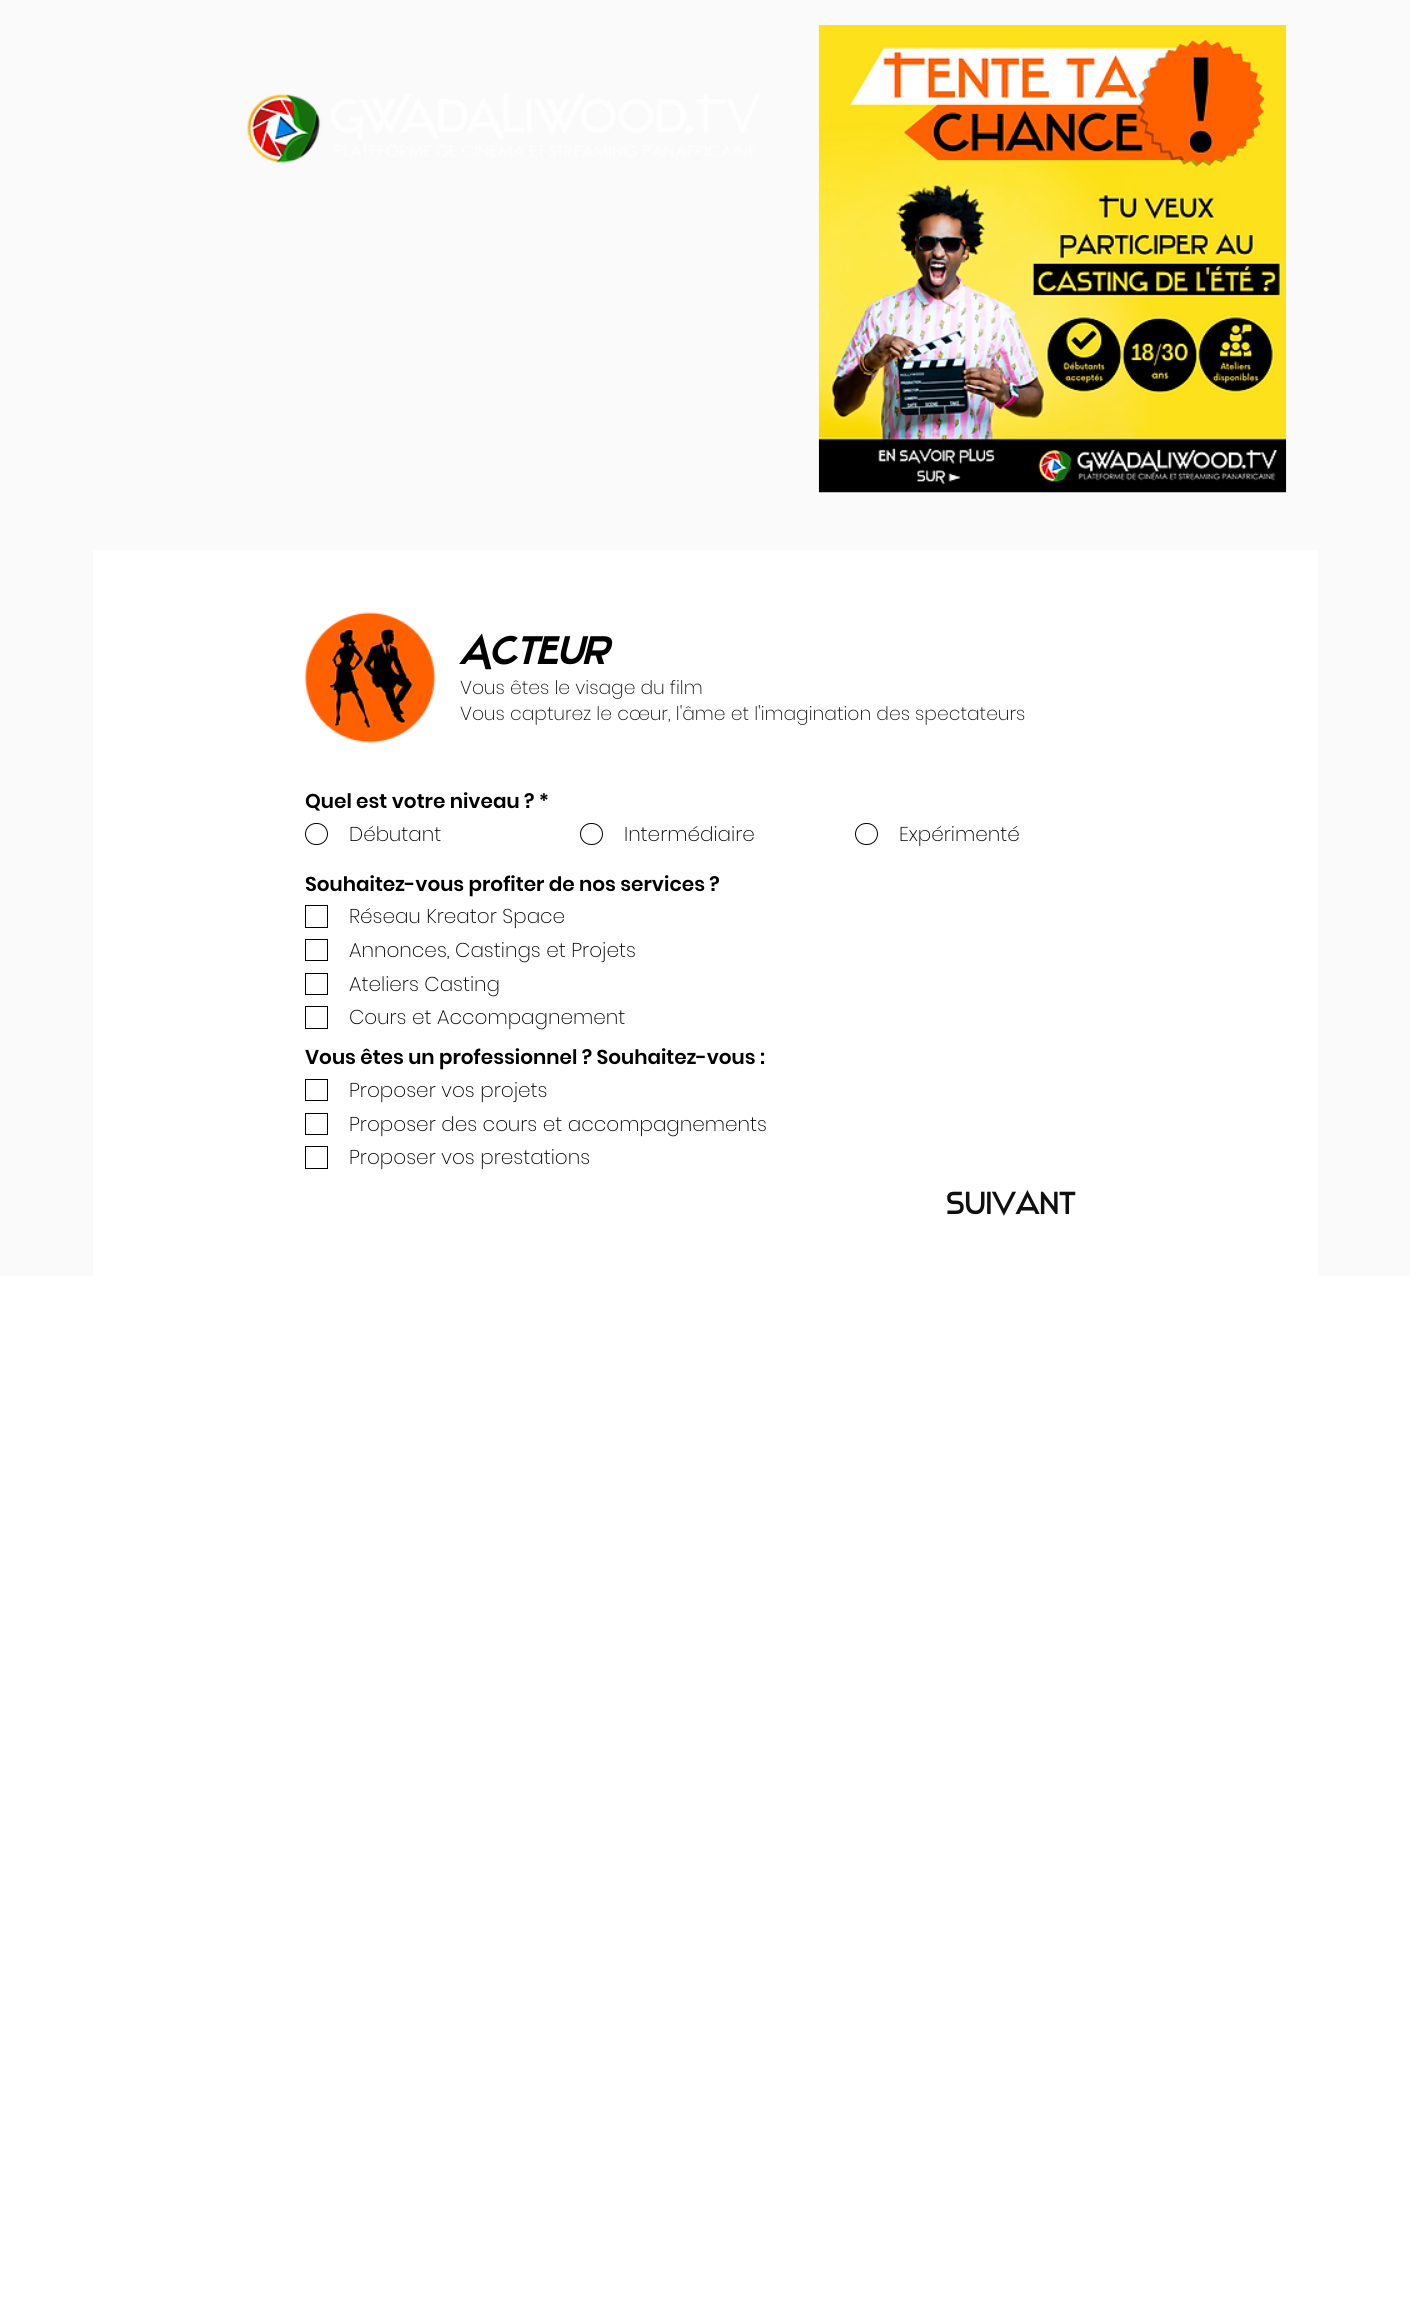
#include <cairo/cairo.h>
#include <math.h>
#include <stddef.h>


static void rounded_rect(cairo_t *cr, double x, double y, double w, double h, double r) {
  cairo_new_sub_path(cr);
  cairo_arc(cr, x + w - r, y + h - r, r, 0, M_PI / 2);
  cairo_arc(cr, x + r, y + h - r, r, M_PI / 2, M_PI);
  cairo_arc(cr, x + r, y + r, r, M_PI, 1.5 * M_PI);
  cairo_arc(cr, x + w - r, y + r, r, 1.5 * M_PI, 2 * M_PI);
  cairo_close_path(cr);
}

static void draw_image(cairo_t *cr, const char *path, double x, double y, double w, double h) {
  cairo_surface_t *image = cairo_image_surface_create_from_png(path);
  cairo_save(cr);
  cairo_set_source_surface(cr, image, x, y);
  cairo_rectangle(cr, x, y, w, h);
  cairo_fill(cr);
  cairo_restore(cr);
  cairo_surface_destroy(image);
}

static void draw(cairo_t *cr) {
  cairo_set_source_rgb(cr, 1, 1, 1);
  cairo_paint(cr);
  cairo_set_source_rgb(cr, 250 / 255.0, 250 / 255.0, 250 / 255.0);
  cairo_rectangle(cr, 0, 0, 1410, 1276);
  cairo_fill(cr);
  draw_image(cr, "images/1.png", 247, 93, 512, 70);
  draw_image(cr, "images/2.png", 818, 25, 469, 468);
  cairo_set_source_rgb(cr, 1, 1, 1);
  cairo_rectangle(cr, 93, 550, 1225, 726);
  cairo_fill(cr);
  draw_image(cr, "images/3.png", 304, 612, 132, 131);
  rounded_rect(cr, 305.5, 823.5, 22, 21, 10.5);
  cairo_set_source_rgb(cr, 0, 0, 0);
  cairo_set_line_width(cr, 1);
  cairo_stroke(cr);
  rounded_rect(cr, 580.5, 823.5, 22, 21, 10.5);
  cairo_stroke(cr);
  rounded_rect(cr, 855.5, 823.5, 22, 21, 10.5);
  cairo_stroke(cr);
  cairo_rectangle(cr, 305.5, 905.5, 22, 22);
  cairo_stroke(cr);
  cairo_rectangle(cr, 305.5, 939.5, 22, 21);
  cairo_stroke(cr);
  cairo_rectangle(cr, 305.5, 973.5, 22, 21);
  cairo_stroke(cr);
  cairo_rectangle(cr, 305.5, 1006.5, 22, 22);
  cairo_stroke(cr);
  cairo_rectangle(cr, 305.5, 1079.5, 22, 21);
  cairo_stroke(cr);
  cairo_rectangle(cr, 305.5, 1113.5, 22, 21);
  cairo_stroke(cr);
  cairo_rectangle(cr, 305.5, 1146.5, 22, 22);
  cairo_stroke(cr);
  cairo_select_font_face(cr, "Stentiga", CAIRO_FONT_SLANT_ITALIC, CAIRO_FONT_WEIGHT_BOLD);
  cairo_set_font_size(cr, 37.5);
  cairo_move_to(cr, 460, 664);
  cairo_show_text(cr, "Acteur");
  cairo_select_font_face(cr, "Poppins ExtraLight", CAIRO_FONT_SLANT_NORMAL, CAIRO_FONT_WEIGHT_NORMAL);
  cairo_set_font_size(cr, 18.75);
  cairo_set_source_rgb(cr, 15 / 255.0, 15 / 255.0, 15 / 255.0);
  cairo_move_to(cr, 460, 694);
  cairo_show_text(cr, "Vous êtes le visage du film");
  cairo_move_to(cr, 460, 720);
  cairo_show_text(cr, "Vous capturez le cœur, l'âme et l'imagination des spectateurs");
  cairo_select_font_face(cr, "Poppins SemiBold", CAIRO_FONT_SLANT_NORMAL, CAIRO_FONT_WEIGHT_NORMAL);
  cairo_set_font_size(cr, 20);
  cairo_set_source_rgb(cr, 0, 0, 0);
  cairo_move_to(cr, 305, 808);
  cairo_show_text(cr, "Quel est votre niveau ? *");
  cairo_select_font_face(cr, "Poppins ExtraLight", CAIRO_FONT_SLANT_NORMAL, CAIRO_FONT_WEIGHT_NORMAL);
  cairo_move_to(cr, 349, 841);
  cairo_show_text(cr, "Débutant");
  cairo_move_to(cr, 624, 841);
  cairo_show_text(cr, "Intermédiaire");
  cairo_move_to(cr, 899, 841);
  cairo_show_text(cr, "Expérimenté");
  cairo_select_font_face(cr, "Poppins SemiBold", CAIRO_FONT_SLANT_NORMAL, CAIRO_FONT_WEIGHT_NORMAL);
  cairo_move_to(cr, 305, 891);
  cairo_show_text(cr, "Souhaitez-vous profiter de nos services ?");
  cairo_select_font_face(cr, "Poppins ExtraLight", CAIRO_FONT_SLANT_NORMAL, CAIRO_FONT_WEIGHT_NORMAL);
  cairo_move_to(cr, 349, 923);
  cairo_show_text(cr, "Réseau Kreator Space");
  cairo_move_to(cr, 349, 957);
  cairo_show_text(cr, "Annonces, Castings et Projets");
  cairo_move_to(cr, 349, 991);
  cairo_show_text(cr, "Ateliers Casting");
  cairo_move_to(cr, 349, 1024);
  cairo_show_text(cr, "Cours et Accompagnement");
  cairo_select_font_face(cr, "Poppins SemiBold", CAIRO_FONT_SLANT_NORMAL, CAIRO_FONT_WEIGHT_NORMAL);
  cairo_move_to(cr, 305, 1064);
  cairo_show_text(cr, "Vous êtes un professionnel ? Souhaitez-vous :");
  cairo_select_font_face(cr, "Poppins ExtraLight", CAIRO_FONT_SLANT_NORMAL, CAIRO_FONT_WEIGHT_NORMAL);
  cairo_move_to(cr, 349, 1097);
  cairo_show_text(cr, "Proposer vos projets");
  cairo_move_to(cr, 349, 1131);
  cairo_show_text(cr, "Proposer des cours et accompagnements");
  cairo_move_to(cr, 349, 1164);
  cairo_show_text(cr, "Proposer vos prestations");
  cairo_select_font_face(cr, "Stentiga", CAIRO_FONT_SLANT_NORMAL, CAIRO_FONT_WEIGHT_NORMAL);
  cairo_set_font_size(cr, 31.25);
  cairo_set_source_rgb(cr, 15 / 255.0, 15 / 255.0, 15 / 255.0);
  cairo_move_to(cr, 946, 1214);
  cairo_show_text(cr, "Suivant");
}

int main(void) {
  cairo_surface_t *surface = cairo_image_surface_create(CAIRO_FORMAT_RGB24, 1410, 2313);
  cairo_t *cr = cairo_create(surface);
  cairo_font_options_t *options = cairo_font_options_create();
  cairo_font_options_set_hint_metrics(options, CAIRO_HINT_METRICS_OFF);
  cairo_font_options_set_hint_style(options, CAIRO_HINT_STYLE_NONE);
  cairo_set_font_options(cr, options);
  cairo_set_miter_limit(cr, 4);
  draw(cr);
  cairo_surface_write_to_png(surface, "out.png");
  cairo_font_options_destroy(options);
  cairo_destroy(cr);
  cairo_surface_destroy(surface);
  return 0;
}
